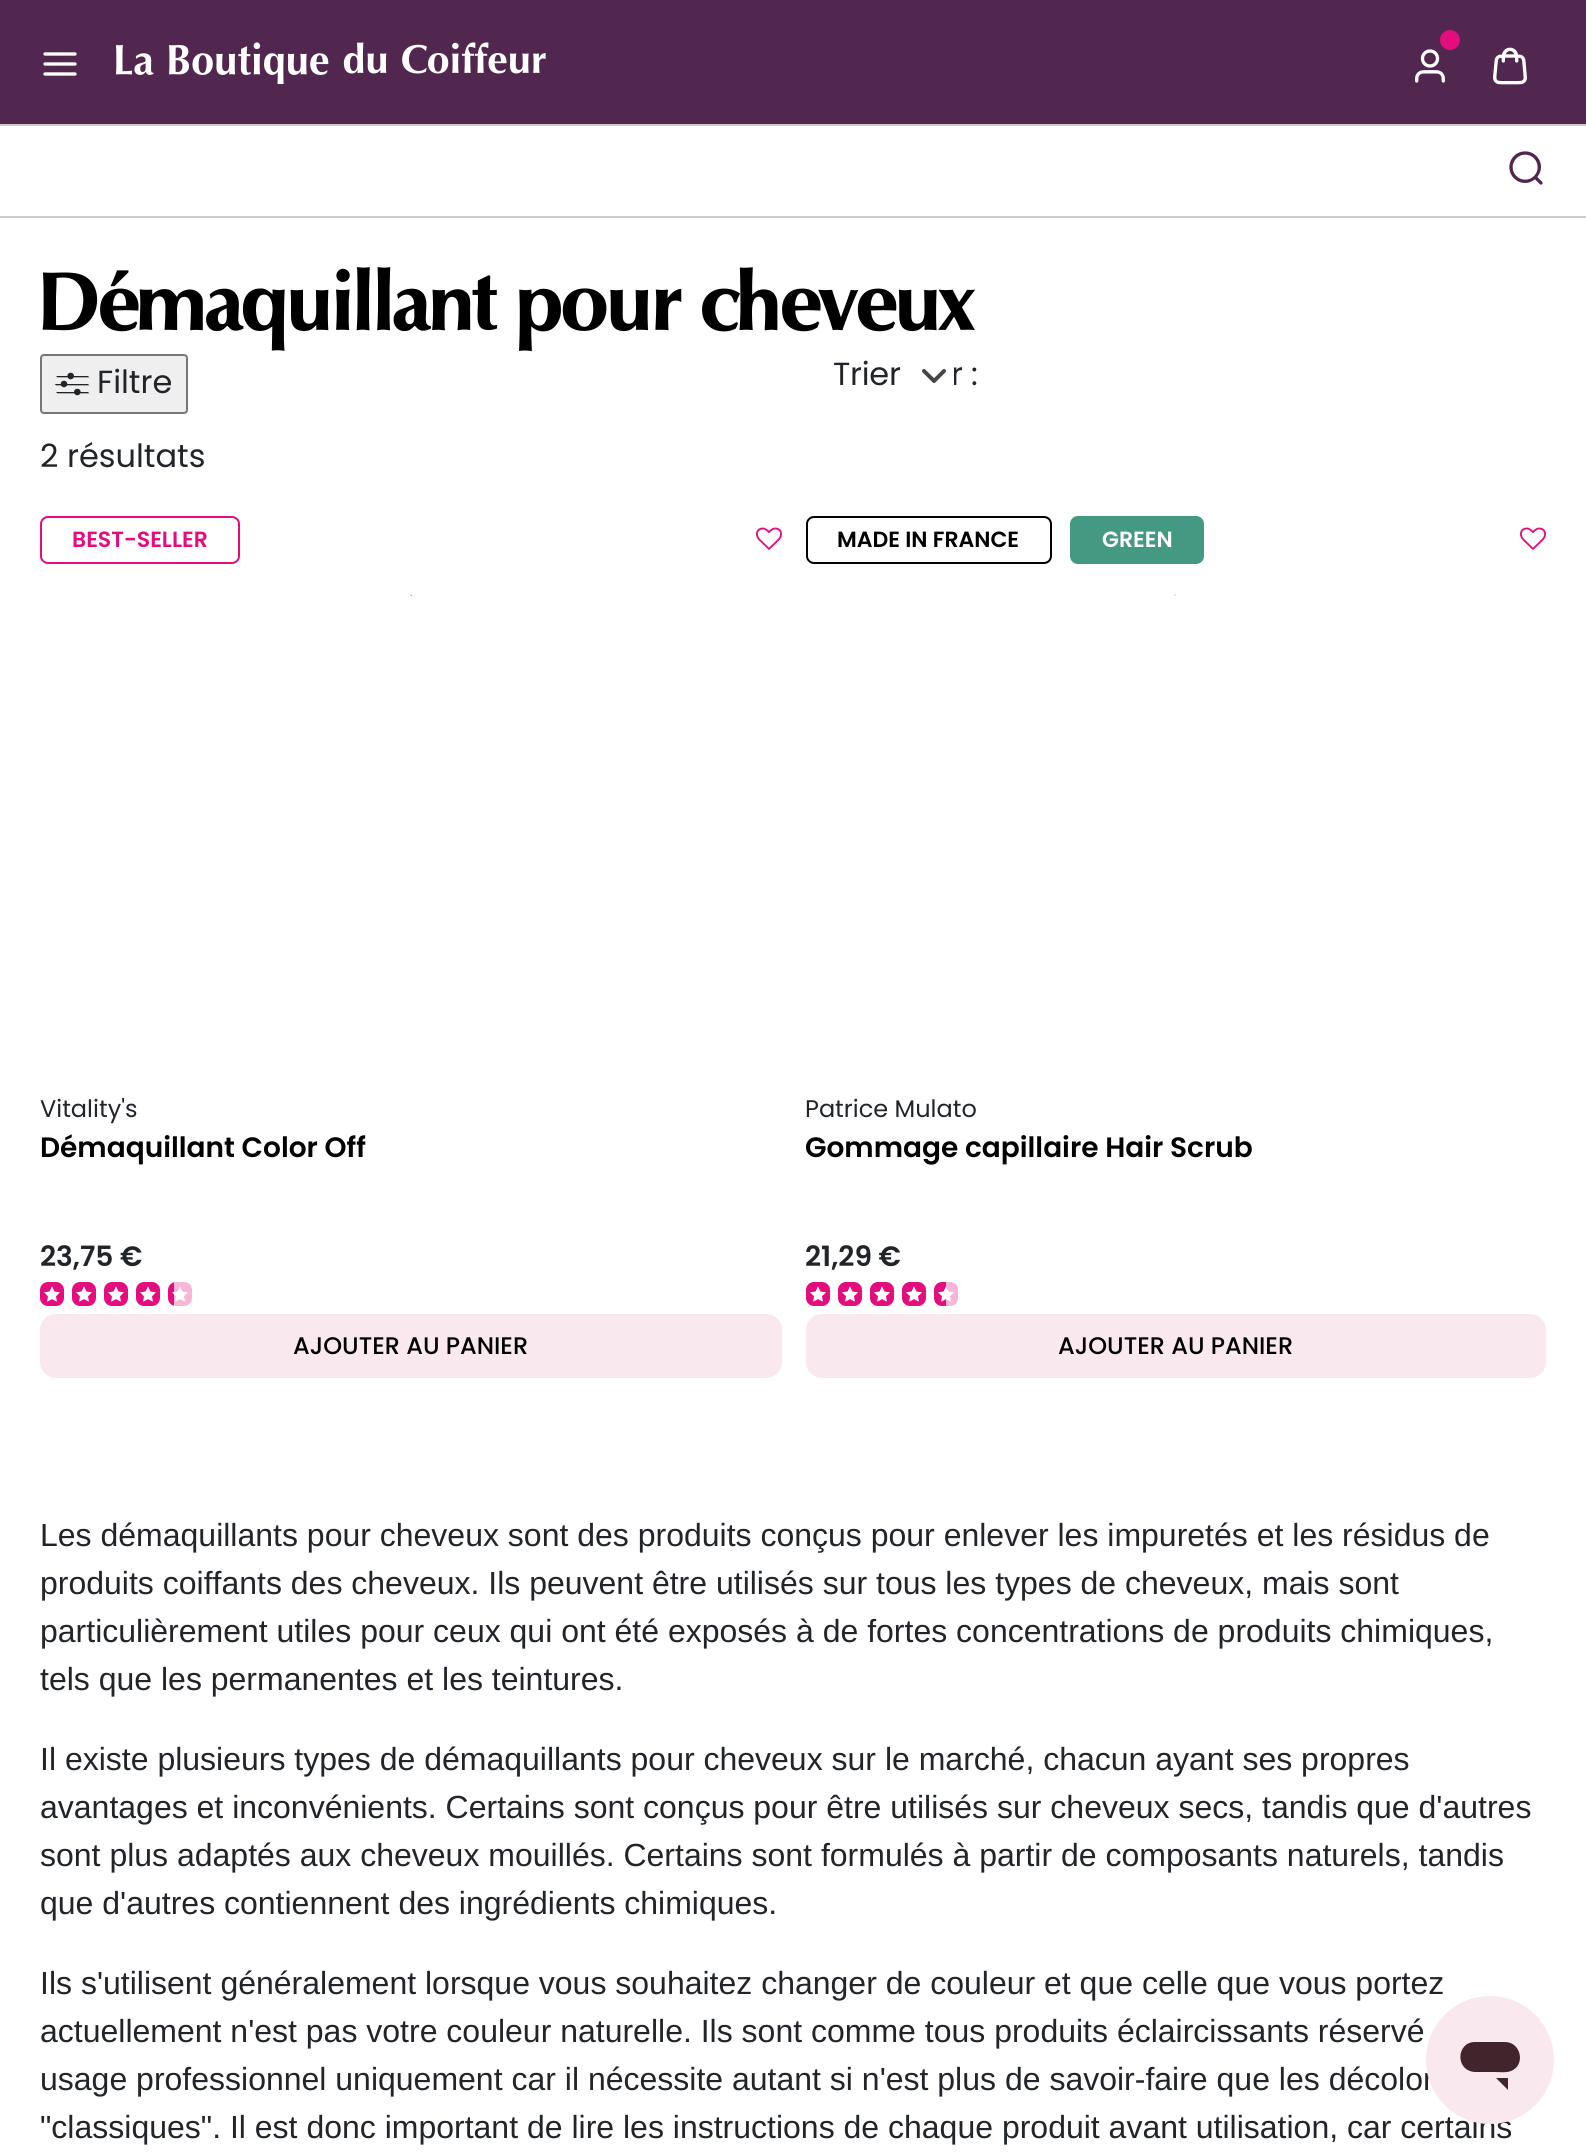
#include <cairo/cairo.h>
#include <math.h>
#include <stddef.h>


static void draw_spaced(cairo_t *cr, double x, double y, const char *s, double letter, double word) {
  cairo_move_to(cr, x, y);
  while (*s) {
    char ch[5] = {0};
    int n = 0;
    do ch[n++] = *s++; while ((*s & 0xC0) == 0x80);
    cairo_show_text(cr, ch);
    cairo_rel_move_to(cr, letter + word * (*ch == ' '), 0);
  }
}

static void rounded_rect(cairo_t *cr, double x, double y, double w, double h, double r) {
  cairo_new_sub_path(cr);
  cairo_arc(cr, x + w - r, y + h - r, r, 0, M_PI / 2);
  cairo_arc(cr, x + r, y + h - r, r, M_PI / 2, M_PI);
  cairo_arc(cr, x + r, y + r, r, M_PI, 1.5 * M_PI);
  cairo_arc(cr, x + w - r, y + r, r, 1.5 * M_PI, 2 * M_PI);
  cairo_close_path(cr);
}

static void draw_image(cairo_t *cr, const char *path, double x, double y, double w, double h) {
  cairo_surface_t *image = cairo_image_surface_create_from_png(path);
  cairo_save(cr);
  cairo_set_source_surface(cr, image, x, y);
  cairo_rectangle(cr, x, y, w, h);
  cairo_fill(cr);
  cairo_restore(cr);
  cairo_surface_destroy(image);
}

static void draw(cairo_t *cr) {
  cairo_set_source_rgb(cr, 1, 1, 1);
  cairo_paint(cr);
  cairo_set_source_rgb(cr, 81 / 255.0, 38 / 255.0, 79 / 255.0);
  cairo_rectangle(cr, 0, 0, 1586, 124);
  cairo_fill(cr);
  draw_image(cr, "images/1.png", 43, 52, 34, 24);
  draw_image(cr, "images/2.png", 116, 42, 430, 42);
  draw_image(cr, "images/3.png", 1415, 49, 30, 34);
  cairo_set_source_rgb(cr, 228 / 255.0, 13 / 255.0, 126 / 255.0);
  cairo_arc(cr, 1450, 40, 10, 0, 2 * M_PI);
  cairo_fill(cr);
  draw_image(cr, "images/4.png", 1493, 47, 34, 38);
  cairo_set_source_rgb(cr, 204 / 255.0, 204 / 255.0, 204 / 255.0);
  cairo_rectangle(cr, 0, 124, 1586, 2);
  cairo_fill(cr);
  cairo_rectangle(cr, 0, 216, 1586, 2);
  cairo_fill(cr);
  draw_image(cr, "images/5.png", 1509, 151, 34, 34);
  cairo_set_source_rgb(cr, 239 / 255.0, 239 / 255.0, 239 / 255.0);
  rounded_rect(cr, 41, 355, 146, 58, 3);
  cairo_fill_preserve(cr);
  cairo_set_source_rgb(cr, 118 / 255.0, 118 / 255.0, 118 / 255.0);
  cairo_stroke(cr);
  draw_image(cr, "images/6.png", 54, 372, 36, 24);
  draw_image(cr, "images/7.png", 922, 369, 24, 14);
  rounded_rect(cr, 41, 517, 198, 46, 7);
  cairo_set_source_rgb(cr, 228 / 255.0, 13 / 255.0, 126 / 255.0);
  cairo_stroke(cr);
  draw_image(cr, "images/8.png", 756, 527, 26, 23);
  draw_image(cr, "images/9.png", 410, 594, 2, 2);
  rounded_rect(cr, 40, 1282, 24, 24, 8);
  cairo_fill(cr);
  draw_image(cr, "images/10.png", 44, 1286, 16, 16);
  rounded_rect(cr, 72, 1282, 24, 24, 8);
  cairo_fill(cr);
  draw_image(cr, "images/10.png", 76, 1286, 16, 16);
  rounded_rect(cr, 104, 1282, 24, 24, 8);
  cairo_fill(cr);
  draw_image(cr, "images/10.png", 108, 1286, 16, 16);
  rounded_rect(cr, 136, 1282, 24, 24, 8);
  cairo_fill(cr);
  draw_image(cr, "images/10.png", 140, 1286, 16, 16);
  cairo_save(cr);
  rounded_rect(cr, 168, 1282, 24, 24, 8);
  cairo_clip(cr);
  cairo_rectangle(cr, 168, 1282, 6, 24);
  cairo_fill(cr);
  cairo_set_source_rgb(cr, 247 / 255.0, 182 / 255.0, 216 / 255.0);
  cairo_new_path(cr);
  cairo_move_to(cr, 174, 1282);
  cairo_line_to(cr, 184, 1282);
  cairo_curve_to(cr, 188.5, 1282, 192, 1285.5, 192, 1290);
  cairo_line_to(cr, 192, 1298);
  cairo_curve_to(cr, 192, 1302.5, 188.5, 1306, 184, 1306);
  cairo_line_to(cr, 174, 1306);
  cairo_close_path(cr);
  cairo_fill(cr);
  cairo_restore(cr);
  draw_image(cr, "images/11.png", 172, 1286, 16, 16);
  cairo_set_source_rgb(cr, 249 / 255.0, 233 / 255.0, 238 / 255.0);
  rounded_rect(cr, 41, 1315, 740, 62, 15);
  cairo_fill_preserve(cr);
  cairo_stroke(cr);
  rounded_rect(cr, 807, 517, 244, 46, 7);
  cairo_set_source_rgb(cr, 0, 0, 0);
  cairo_stroke(cr);
  cairo_set_source_rgb(cr, 68 / 255.0, 153 / 255.0, 131 / 255.0);
  rounded_rect(cr, 1071, 517, 132, 46, 7);
  cairo_fill_preserve(cr);
  cairo_stroke(cr);
  draw_image(cr, "images/8.png", 1520, 527, 26, 23);
  draw_image(cr, "images/12.png", 1174, 594, 2, 2);
  cairo_set_source_rgb(cr, 228 / 255.0, 13 / 255.0, 126 / 255.0);
  rounded_rect(cr, 806, 1282, 24, 24, 8);
  cairo_fill(cr);
  draw_image(cr, "images/10.png", 810, 1286, 16, 16);
  rounded_rect(cr, 838, 1282, 24, 24, 8);
  cairo_fill(cr);
  draw_image(cr, "images/10.png", 842, 1286, 16, 16);
  rounded_rect(cr, 870, 1282, 24, 24, 8);
  cairo_fill(cr);
  draw_image(cr, "images/10.png", 874, 1286, 16, 16);
  rounded_rect(cr, 902, 1282, 24, 24, 8);
  cairo_fill(cr);
  draw_image(cr, "images/10.png", 906, 1286, 16, 16);
  cairo_new_path(cr);
  cairo_move_to(cr, 942, 1282);
  cairo_line_to(cr, 946, 1282);
  cairo_line_to(cr, 946, 1306);
  cairo_line_to(cr, 942, 1306);
  cairo_curve_to(cr, 937.5, 1306, 934, 1302.5, 934, 1298);
  cairo_line_to(cr, 934, 1290);
  cairo_curve_to(cr, 934, 1285.5, 937.5, 1282, 942, 1282);
  cairo_close_path(cr);
  cairo_fill(cr);
  cairo_set_source_rgb(cr, 247 / 255.0, 182 / 255.0, 216 / 255.0);
  cairo_new_path(cr);
  cairo_move_to(cr, 946, 1282);
  cairo_line_to(cr, 950, 1282);
  cairo_curve_to(cr, 954.5, 1282, 958, 1285.5, 958, 1290);
  cairo_line_to(cr, 958, 1298);
  cairo_curve_to(cr, 958, 1302.5, 954.5, 1306, 950, 1306);
  cairo_line_to(cr, 946, 1306);
  cairo_close_path(cr);
  cairo_fill(cr);
  draw_image(cr, "images/13.png", 938, 1286, 16, 16);
  cairo_set_source_rgb(cr, 249 / 255.0, 233 / 255.0, 238 / 255.0);
  rounded_rect(cr, 807, 1315, 738, 62, 15);
  cairo_fill_preserve(cr);
  cairo_stroke(cr);
  cairo_select_font_face(cr, "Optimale", CAIRO_FONT_SLANT_NORMAL, CAIRO_FONT_WEIGHT_BOLD);
  cairo_set_font_size(cr, 80);
  cairo_set_source_rgb(cr, 0, 0, 0);
  cairo_move_to(cr, 40, 329);
  cairo_show_text(cr, "Démaquillant pour cheveux");
  cairo_select_font_face(cr, "Poppins", CAIRO_FONT_SLANT_NORMAL, CAIRO_FONT_WEIGHT_NORMAL);
  cairo_set_font_size(cr, 32);
  cairo_set_source_rgb(cr, 33 / 255.0, 37 / 255.0, 41 / 255.0);
  cairo_move_to(cr, 97, 393);
  cairo_show_text(cr, "Filtre");
  draw_spaced(cr, 833, 385, "Trier", -0.25, 0);
  draw_spaced(cr, 951, 385, "r :", -0.25, 0);
  cairo_set_source_rgb(cr, 1, 1, 1);
  cairo_rectangle(cr, 953, 367, 1, 18);
  cairo_fill(cr);
  cairo_set_source_rgb(cr, 33 / 255.0, 37 / 255.0, 41 / 255.0);
  cairo_move_to(cr, 40, 467);
  cairo_show_text(cr, "2 résultats");
  cairo_select_font_face(cr, "Poppins SemiBold", CAIRO_FONT_SLANT_NORMAL, CAIRO_FONT_WEIGHT_NORMAL);
  cairo_set_font_size(cr, 22);
  cairo_set_source_rgb(cr, 228 / 255.0, 13 / 255.0, 126 / 255.0);
  cairo_move_to(cr, 72, 547);
  cairo_show_text(cr, "BEST-SELLER");
  cairo_select_font_face(cr, "Poppins", CAIRO_FONT_SLANT_NORMAL, CAIRO_FONT_WEIGHT_NORMAL);
  cairo_set_font_size(cr, 24);
  cairo_set_source_rgb(cr, 33 / 255.0, 37 / 255.0, 41 / 255.0);
  cairo_move_to(cr, 40, 1117);
  cairo_show_text(cr, "Vitality's");
  cairo_select_font_face(cr, "Poppins SemiBold", CAIRO_FONT_SLANT_NORMAL, CAIRO_FONT_WEIGHT_NORMAL);
  cairo_set_font_size(cr, 28);
  cairo_set_source_rgb(cr, 0, 0, 0);
  cairo_move_to(cr, 40, 1157);
  cairo_show_text(cr, "Démaquillant Color Off");
  cairo_set_source_rgb(cr, 33 / 255.0, 37 / 255.0, 41 / 255.0);
  cairo_move_to(cr, 40, 1266);
  cairo_show_text(cr, "23,75 €");
  cairo_select_font_face(cr, "Poppins Medium", CAIRO_FONT_SLANT_NORMAL, CAIRO_FONT_WEIGHT_NORMAL);
  cairo_set_font_size(cr, 24);
  cairo_set_source_rgb(cr, 0, 0, 0);
  cairo_move_to(cr, 293, 1354);
  cairo_show_text(cr, "AJOUTER AU PANIER");
  cairo_select_font_face(cr, "Poppins SemiBold", CAIRO_FONT_SLANT_NORMAL, CAIRO_FONT_WEIGHT_NORMAL);
  cairo_set_font_size(cr, 22);
  cairo_move_to(cr, 837, 547);
  cairo_show_text(cr, "MADE IN FRANCE");
  cairo_set_source_rgb(cr, 1, 1, 1);
  cairo_move_to(cr, 1102, 547);
  cairo_show_text(cr, "GREEN");
  cairo_select_font_face(cr, "Poppins", CAIRO_FONT_SLANT_NORMAL, CAIRO_FONT_WEIGHT_NORMAL);
  cairo_set_font_size(cr, 24);
  cairo_set_source_rgb(cr, 33 / 255.0, 37 / 255.0, 41 / 255.0);
  cairo_move_to(cr, 805, 1117);
  cairo_show_text(cr, "Patrice Mulato");
  cairo_select_font_face(cr, "Poppins SemiBold", CAIRO_FONT_SLANT_NORMAL, CAIRO_FONT_WEIGHT_NORMAL);
  cairo_set_font_size(cr, 28);
  cairo_set_source_rgb(cr, 0, 0, 0);
  cairo_move_to(cr, 805, 1157);
  cairo_show_text(cr, "Gommage capillaire Hair Scrub");
  cairo_set_source_rgb(cr, 33 / 255.0, 37 / 255.0, 41 / 255.0);
  cairo_move_to(cr, 805, 1266);
  cairo_show_text(cr, "21,29 €");
  cairo_select_font_face(cr, "Poppins Medium", CAIRO_FONT_SLANT_NORMAL, CAIRO_FONT_WEIGHT_NORMAL);
  cairo_set_font_size(cr, 24);
  cairo_set_source_rgb(cr, 0, 0, 0);
  cairo_move_to(cr, 1058, 1354);
  cairo_show_text(cr, "AJOUTER AU PANIER");
  cairo_select_font_face(cr, "Liberation Sans", CAIRO_FONT_SLANT_NORMAL, CAIRO_FONT_WEIGHT_NORMAL);
  cairo_set_font_size(cr, 32);
  cairo_set_source_rgb(cr, 33 / 255.0, 37 / 255.0, 41 / 255.0);
  cairo_move_to(cr, 40, 1546);
  cairo_show_text(cr, "Les démaquillants pour cheveux sont des produits conçus pour enlever les impuretés et les résidus de");
  cairo_move_to(cr, 40, 1594);
  cairo_show_text(cr, "produits coiffants des cheveux. Ils peuvent être utilisés sur tous les types de cheveux, mais sont");
  cairo_move_to(cr, 40, 1642);
  cairo_show_text(cr, "particulièrement utiles pour ceux qui ont été exposés à de fortes concentrations de produits chimiques,");
  cairo_move_to(cr, 40, 1690);
  cairo_show_text(cr, "tels que les permanentes et les teintures.");
  cairo_move_to(cr, 40, 1770);
  cairo_show_text(cr, "Il existe plusieurs types de démaquillants pour cheveux sur le marché, chacun ayant ses propres");
  cairo_move_to(cr, 40, 1818);
  cairo_show_text(cr, "avantages et inconvénients. Certains sont conçus pour être utilisés sur cheveux secs, tandis que d'autres");
  cairo_move_to(cr, 40, 1866);
  cairo_show_text(cr, "sont plus adaptés aux cheveux mouillés. Certains sont formulés à partir de composants naturels, tandis");
  cairo_move_to(cr, 40, 1914);
  cairo_show_text(cr, "que d'autres contiennent des ingrédients chimiques.");
  cairo_move_to(cr, 40, 1994);
  cairo_show_text(cr, "Ils s'utilisent généralement lorsque vous souhaitez changer de couleur et que celle que vous portez");
  cairo_move_to(cr, 40, 2042);
  cairo_show_text(cr, "actuellement n'est pas votre couleur naturelle. Ils sont comme tous produits éclaircissants réservé");
  cairo_move_to(cr, 40, 2090);
  cairo_show_text(cr, "usage professionnel uniquement car il nécessite autant si n'est plus de savoir-faire que les décolor");
  cairo_move_to(cr, 40, 2138);
  cairo_show_text(cr, "\"classiques\". Il est donc important de lire les instructions de chaque produit avant utilisation, car certains");
  cairo_set_source_rgb(cr, 249 / 255.0, 233 / 255.0, 238 / 255.0);
  cairo_new_path(cr);
  cairo_arc(cr, 1490, 2060, 64, 0, 2 * M_PI);
  cairo_fill(cr);
  cairo_set_source_rgb(cr, 66 / 255.0, 36 / 255.0, 45 / 255.0);
  cairo_new_path(cr);
  cairo_move_to(cr, 1496, 2078);
  cairo_line_to(cr, 1508, 2090);
  cairo_line_to(cr, 1508, 2078);
  cairo_close_path(cr);
  cairo_move_to(cr, 1475, 2042);
  cairo_curve_to(cr, 1456, 2042, 1455, 2071, 1475, 2072);
  cairo_line_to(cr, 1495, 2072);
  cairo_curve_to(cr, 1500, 2072, 1506, 2073, 1511, 2071);
  cairo_curve_to(cr, 1526, 2065, 1521, 2042, 1505, 2042);
  cairo_close_path(cr);
  cairo_fill(cr);
}

int main(void) {
  cairo_surface_t *surface = cairo_image_surface_create(CAIRO_FORMAT_RGB24, 1586, 2155);
  cairo_t *cr = cairo_create(surface);
  cairo_font_options_t *options = cairo_font_options_create();
  cairo_font_options_set_hint_metrics(options, CAIRO_HINT_METRICS_OFF);
  cairo_font_options_set_hint_style(options, CAIRO_HINT_STYLE_NONE);
  cairo_set_font_options(cr, options);
  cairo_set_miter_limit(cr, 4);
  draw(cr);
  cairo_surface_write_to_png(surface, "out.png");
  cairo_font_options_destroy(options);
  cairo_destroy(cr);
  cairo_surface_destroy(surface);
  return 0;
}
